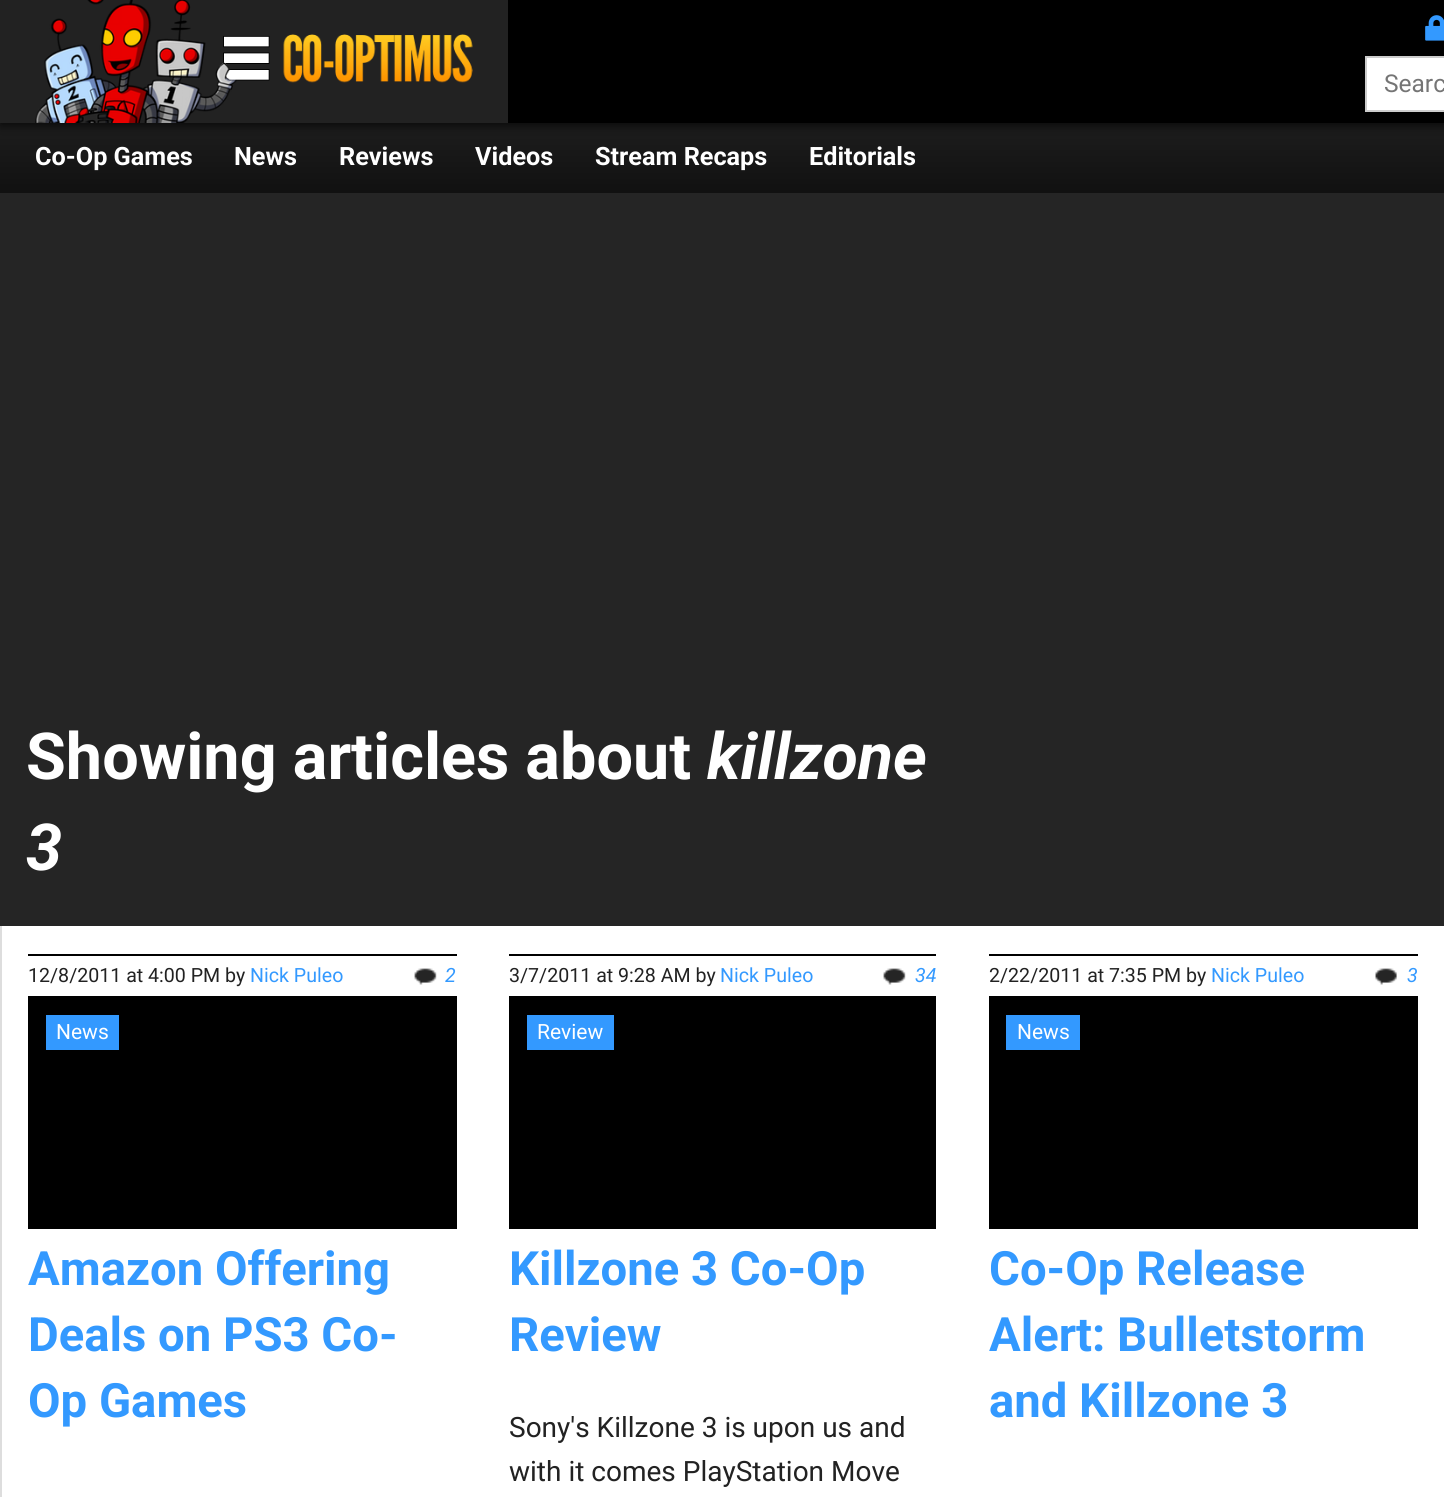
#include <cairo/cairo.h>
#include <math.h>
#include <stddef.h>


static void rounded_rect(cairo_t *cr, double x, double y, double w, double h, double r) {
  cairo_new_sub_path(cr);
  cairo_arc(cr, x + w - r, y + h - r, r, 0, M_PI / 2);
  cairo_arc(cr, x + r, y + h - r, r, M_PI / 2, M_PI);
  cairo_arc(cr, x + r, y + r, r, M_PI, 1.5 * M_PI);
  cairo_arc(cr, x + w - r, y + r, r, 1.5 * M_PI, 2 * M_PI);
  cairo_close_path(cr);
}

static void draw_shadow(cairo_t *cr, double x, double y, double w, double h, double r, double blur, double alpha) {
  cairo_push_group_with_content(cr, CAIRO_CONTENT_ALPHA);
  cairo_set_operator(cr, CAIRO_OPERATOR_SOURCE);
  for (int i = 15; i >= -15 && fmin(w, h) + blur * i / 3 > 0; i -= 2) {
    double e = blur * i / 6;
    cairo_set_source_rgba(cr, 0, 0, 0, alpha * erfc((i - 1) / 8.5) / 2);
    rounded_rect(cr, x - e, y - e, w + 2 * e, h + 2 * e, fmax(0, fmin(r + e + blur * .6, fmin(w, h) / 2 + e)));
    cairo_fill(cr);
  }
  cairo_pattern_t *soft = cairo_pop_group(cr);
  cairo_mask(cr, soft);
  cairo_pattern_destroy(soft);
}

static void draw_image(cairo_t *cr, const char *path, double x, double y, double w, double h) {
  cairo_surface_t *image = cairo_image_surface_create_from_png(path);
  cairo_save(cr);
  cairo_set_source_surface(cr, image, x, y);
  cairo_rectangle(cr, x, y, w, h);
  cairo_fill(cr);
  cairo_restore(cr);
  cairo_surface_destroy(image);
}

static void draw(cairo_t *cr) {
  cairo_pattern_t *gradient;
  cairo_set_source_rgb(cr, 37 / 255.0, 37 / 255.0, 37 / 255.0);
  cairo_paint(cr);
  gradient = cairo_pattern_create_linear(723, 0, 723, 193);
  cairo_pattern_add_color_stop_rgba(gradient, 0, 51 / 255.0, 51 / 255.0, 51 / 255.0, 1);
  cairo_pattern_add_color_stop_rgba(gradient, 1, 17 / 255.0, 17 / 255.0, 17 / 255.0, 1);
  cairo_set_source(cr, gradient);
  cairo_pattern_destroy(gradient);
  cairo_rectangle(cr, 0, 123, 1444, 70);
  cairo_fill(cr);
  cairo_set_source_rgb(cr, 0, 0, 0);
  draw_shadow(cr, 0, 4, 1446, 122, 0, 5, 0.7);
  cairo_set_source_rgb(cr, 0, 0, 0);
  cairo_rectangle(cr, 508, 0, 936, 123);
  cairo_fill(cr);
  cairo_set_source_rgb(cr, 34 / 255.0, 34 / 255.0, 34 / 255.0);
  cairo_rectangle(cr, 0, 0, 508, 123);
  cairo_fill(cr);
  draw_image(cr, "images/1.png", 35, 0, 438, 123);
  draw_image(cr, "images/2.png", 1425, 15, 19, 26);
  cairo_set_source_rgb(cr, 1, 1, 1);
  cairo_rectangle(cr, 1366, 57, 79, 54);
  cairo_fill_preserve(cr);
  cairo_set_source_rgb(cr, 204 / 255.0, 204 / 255.0, 204 / 255.0);
  cairo_stroke(cr);
  cairo_set_source_rgb(cr, 1, 1, 1);
  cairo_rectangle(cr, 2, 926, 1442, 571);
  cairo_fill(cr);
  cairo_set_source_rgb(cr, 221 / 255.0, 221 / 255.0, 221 / 255.0);
  cairo_rectangle(cr, 0, 926, 2, 571);
  cairo_fill(cr);
  cairo_set_source_rgb(cr, 0, 0, 0);
  cairo_rectangle(cr, 28, 954, 429, 2);
  cairo_fill(cr);
  cairo_rectangle(cr, 28, 996, 429, 233);
  cairo_fill(cr);
  draw_image(cr, "images/3.png", 414, 968, 23, 17);
  cairo_set_source_rgb(cr, 51 / 255.0, 153 / 255.0, 1);
  cairo_rectangle(cr, 46, 1015, 73, 35);
  cairo_fill(cr);
  cairo_set_source_rgb(cr, 0, 0, 0);
  cairo_rectangle(cr, 509, 954, 427, 2);
  cairo_fill(cr);
  cairo_rectangle(cr, 509, 996, 427, 233);
  cairo_fill(cr);
  draw_image(cr, "images/3.png", 883, 968, 23, 17);
  cairo_set_source_rgb(cr, 51 / 255.0, 153 / 255.0, 1);
  cairo_rectangle(cr, 527, 1015, 87, 35);
  cairo_fill(cr);
  cairo_set_source_rgb(cr, 0, 0, 0);
  cairo_rectangle(cr, 989, 954, 429, 2);
  cairo_fill(cr);
  cairo_rectangle(cr, 989, 996, 429, 233);
  cairo_fill(cr);
  draw_image(cr, "images/4.png", 1375, 968, 22, 17);
  cairo_set_source_rgb(cr, 51 / 255.0, 153 / 255.0, 1);
  cairo_rectangle(cr, 1006, 1015, 74, 35);
  cairo_fill(cr);
  cairo_select_font_face(cr, "Roboto", CAIRO_FONT_SLANT_NORMAL, CAIRO_FONT_WEIGHT_NORMAL);
  cairo_set_font_size(cr, 24.5);
  cairo_set_source_rgb(cr, 117 / 255.0, 117 / 255.0, 117 / 255.0);
  cairo_move_to(cr, 1384, 92);
  cairo_show_text(cr, "Searc");
  cairo_select_font_face(cr, "Roboto", CAIRO_FONT_SLANT_NORMAL, CAIRO_FONT_WEIGHT_BOLD);
  cairo_set_font_size(cr, 25.25);
  cairo_set_source_rgb(cr, 1, 1, 1);
  cairo_move_to(cr, 35, 165);
  cairo_show_text(cr, "Co-Op Games");
  cairo_move_to(cr, 234, 165);
  cairo_show_text(cr, "News");
  cairo_move_to(cr, 339, 165);
  cairo_show_text(cr, "Reviews");
  cairo_move_to(cr, 475, 165);
  cairo_show_text(cr, "Videos");
  cairo_move_to(cr, 595, 165);
  cairo_show_text(cr, "Stream Recaps");
  cairo_move_to(cr, 809, 165);
  cairo_show_text(cr, "Editorials");
  cairo_set_font_size(cr, 64.75);
  cairo_move_to(cr, 26, 779);
  cairo_show_text(cr, "Showing articles about");
  cairo_select_font_face(cr, "Roboto", CAIRO_FONT_SLANT_ITALIC, CAIRO_FONT_WEIGHT_BOLD);
  cairo_move_to(cr, 707, 779);
  cairo_show_text(cr, "killzone");
  cairo_move_to(cr, 26, 870);
  cairo_show_text(cr, "3");
  cairo_select_font_face(cr, "Roboto", CAIRO_FONT_SLANT_NORMAL, CAIRO_FONT_WEIGHT_NORMAL);
  cairo_set_font_size(cr, 19.6);
  cairo_set_source_rgb(cr, 34 / 255.0, 34 / 255.0, 34 / 255.0);
  cairo_move_to(cr, 28, 982);
  cairo_show_text(cr, "12/8/2011 at 4:00 PM by");
  cairo_set_source_rgb(cr, 51 / 255.0, 153 / 255.0, 1);
  cairo_move_to(cr, 250, 982);
  cairo_show_text(cr, "Nick Puleo");
  cairo_select_font_face(cr, "Roboto", CAIRO_FONT_SLANT_ITALIC, CAIRO_FONT_WEIGHT_NORMAL);
  cairo_move_to(cr, 445, 982);
  cairo_show_text(cr, "2");
  cairo_select_font_face(cr, "Roboto", CAIRO_FONT_SLANT_NORMAL, CAIRO_FONT_WEIGHT_NORMAL);
  cairo_set_font_size(cr, 21);
  cairo_set_source_rgb(cr, 1, 1, 1);
  cairo_move_to(cr, 56, 1039);
  cairo_show_text(cr, "News");
  cairo_select_font_face(cr, "Roboto", CAIRO_FONT_SLANT_NORMAL, CAIRO_FONT_WEIGHT_BOLD);
  cairo_set_font_size(cr, 47.25);
  cairo_set_source_rgb(cr, 51 / 255.0, 153 / 255.0, 1);
  cairo_move_to(cr, 28, 1285);
  cairo_show_text(cr, "Amazon Offering");
  cairo_move_to(cr, 28, 1351);
  cairo_show_text(cr, "Deals on PS3 Co-");
  cairo_move_to(cr, 28, 1417);
  cairo_show_text(cr, "Op Games");
  cairo_select_font_face(cr, "Roboto", CAIRO_FONT_SLANT_NORMAL, CAIRO_FONT_WEIGHT_NORMAL);
  cairo_set_font_size(cr, 19.6);
  cairo_set_source_rgb(cr, 34 / 255.0, 34 / 255.0, 34 / 255.0);
  cairo_move_to(cr, 509, 982);
  cairo_show_text(cr, "3/7/2011 at 9:28 AM by");
  cairo_set_source_rgb(cr, 51 / 255.0, 153 / 255.0, 1);
  cairo_move_to(cr, 720, 982);
  cairo_show_text(cr, "Nick Puleo");
  cairo_select_font_face(cr, "Roboto", CAIRO_FONT_SLANT_ITALIC, CAIRO_FONT_WEIGHT_NORMAL);
  cairo_move_to(cr, 915, 982);
  cairo_show_text(cr, "34");
  cairo_select_font_face(cr, "Roboto", CAIRO_FONT_SLANT_NORMAL, CAIRO_FONT_WEIGHT_NORMAL);
  cairo_set_font_size(cr, 21);
  cairo_set_source_rgb(cr, 1, 1, 1);
  cairo_move_to(cr, 537, 1039);
  cairo_show_text(cr, "Review");
  cairo_select_font_face(cr, "Roboto", CAIRO_FONT_SLANT_NORMAL, CAIRO_FONT_WEIGHT_BOLD);
  cairo_set_font_size(cr, 47.25);
  cairo_set_source_rgb(cr, 51 / 255.0, 153 / 255.0, 1);
  cairo_move_to(cr, 509, 1285);
  cairo_show_text(cr, "Killzone 3 Co-Op");
  cairo_move_to(cr, 509, 1351);
  cairo_show_text(cr, "Review");
  cairo_select_font_face(cr, "Roboto", CAIRO_FONT_SLANT_NORMAL, CAIRO_FONT_WEIGHT_NORMAL);
  cairo_set_font_size(cr, 28);
  cairo_set_source_rgb(cr, 34 / 255.0, 34 / 255.0, 34 / 255.0);
  cairo_move_to(cr, 509, 1437);
  cairo_show_text(cr, "Sony's Killzone 3 is upon us and");
  cairo_move_to(cr, 509, 1481);
  cairo_show_text(cr, "with it comes PlayStation Move");
  cairo_set_font_size(cr, 19.6);
  cairo_move_to(cr, 989, 982);
  cairo_show_text(cr, "2/22/2011 at 7:35 PM by");
  cairo_set_source_rgb(cr, 51 / 255.0, 153 / 255.0, 1);
  cairo_move_to(cr, 1211, 982);
  cairo_show_text(cr, "Nick Puleo");
  cairo_select_font_face(cr, "Roboto", CAIRO_FONT_SLANT_ITALIC, CAIRO_FONT_WEIGHT_NORMAL);
  cairo_move_to(cr, 1407, 982);
  cairo_show_text(cr, "3");
  cairo_select_font_face(cr, "Roboto", CAIRO_FONT_SLANT_NORMAL, CAIRO_FONT_WEIGHT_NORMAL);
  cairo_set_font_size(cr, 21);
  cairo_set_source_rgb(cr, 1, 1, 1);
  cairo_move_to(cr, 1017, 1039);
  cairo_show_text(cr, "News");
  cairo_select_font_face(cr, "Roboto", CAIRO_FONT_SLANT_NORMAL, CAIRO_FONT_WEIGHT_BOLD);
  cairo_set_font_size(cr, 47.25);
  cairo_set_source_rgb(cr, 51 / 255.0, 153 / 255.0, 1);
  cairo_move_to(cr, 989, 1285);
  cairo_show_text(cr, "Co-Op Release");
  cairo_move_to(cr, 989, 1351);
  cairo_show_text(cr, "Alert: Bulletstorm");
  cairo_move_to(cr, 989, 1417);
  cairo_show_text(cr, "and Killzone 3");
}

int main(void) {
  cairo_surface_t *surface = cairo_image_surface_create(CAIRO_FORMAT_RGB24, 1444, 1497);
  cairo_t *cr = cairo_create(surface);
  cairo_font_options_t *options = cairo_font_options_create();
  cairo_font_options_set_hint_metrics(options, CAIRO_HINT_METRICS_OFF);
  cairo_font_options_set_hint_style(options, CAIRO_HINT_STYLE_NONE);
  cairo_set_font_options(cr, options);
  cairo_set_miter_limit(cr, 4);
  draw(cr);
  cairo_surface_write_to_png(surface, "out.png");
  cairo_font_options_destroy(options);
  cairo_destroy(cr);
  cairo_surface_destroy(surface);
  return 0;
}
